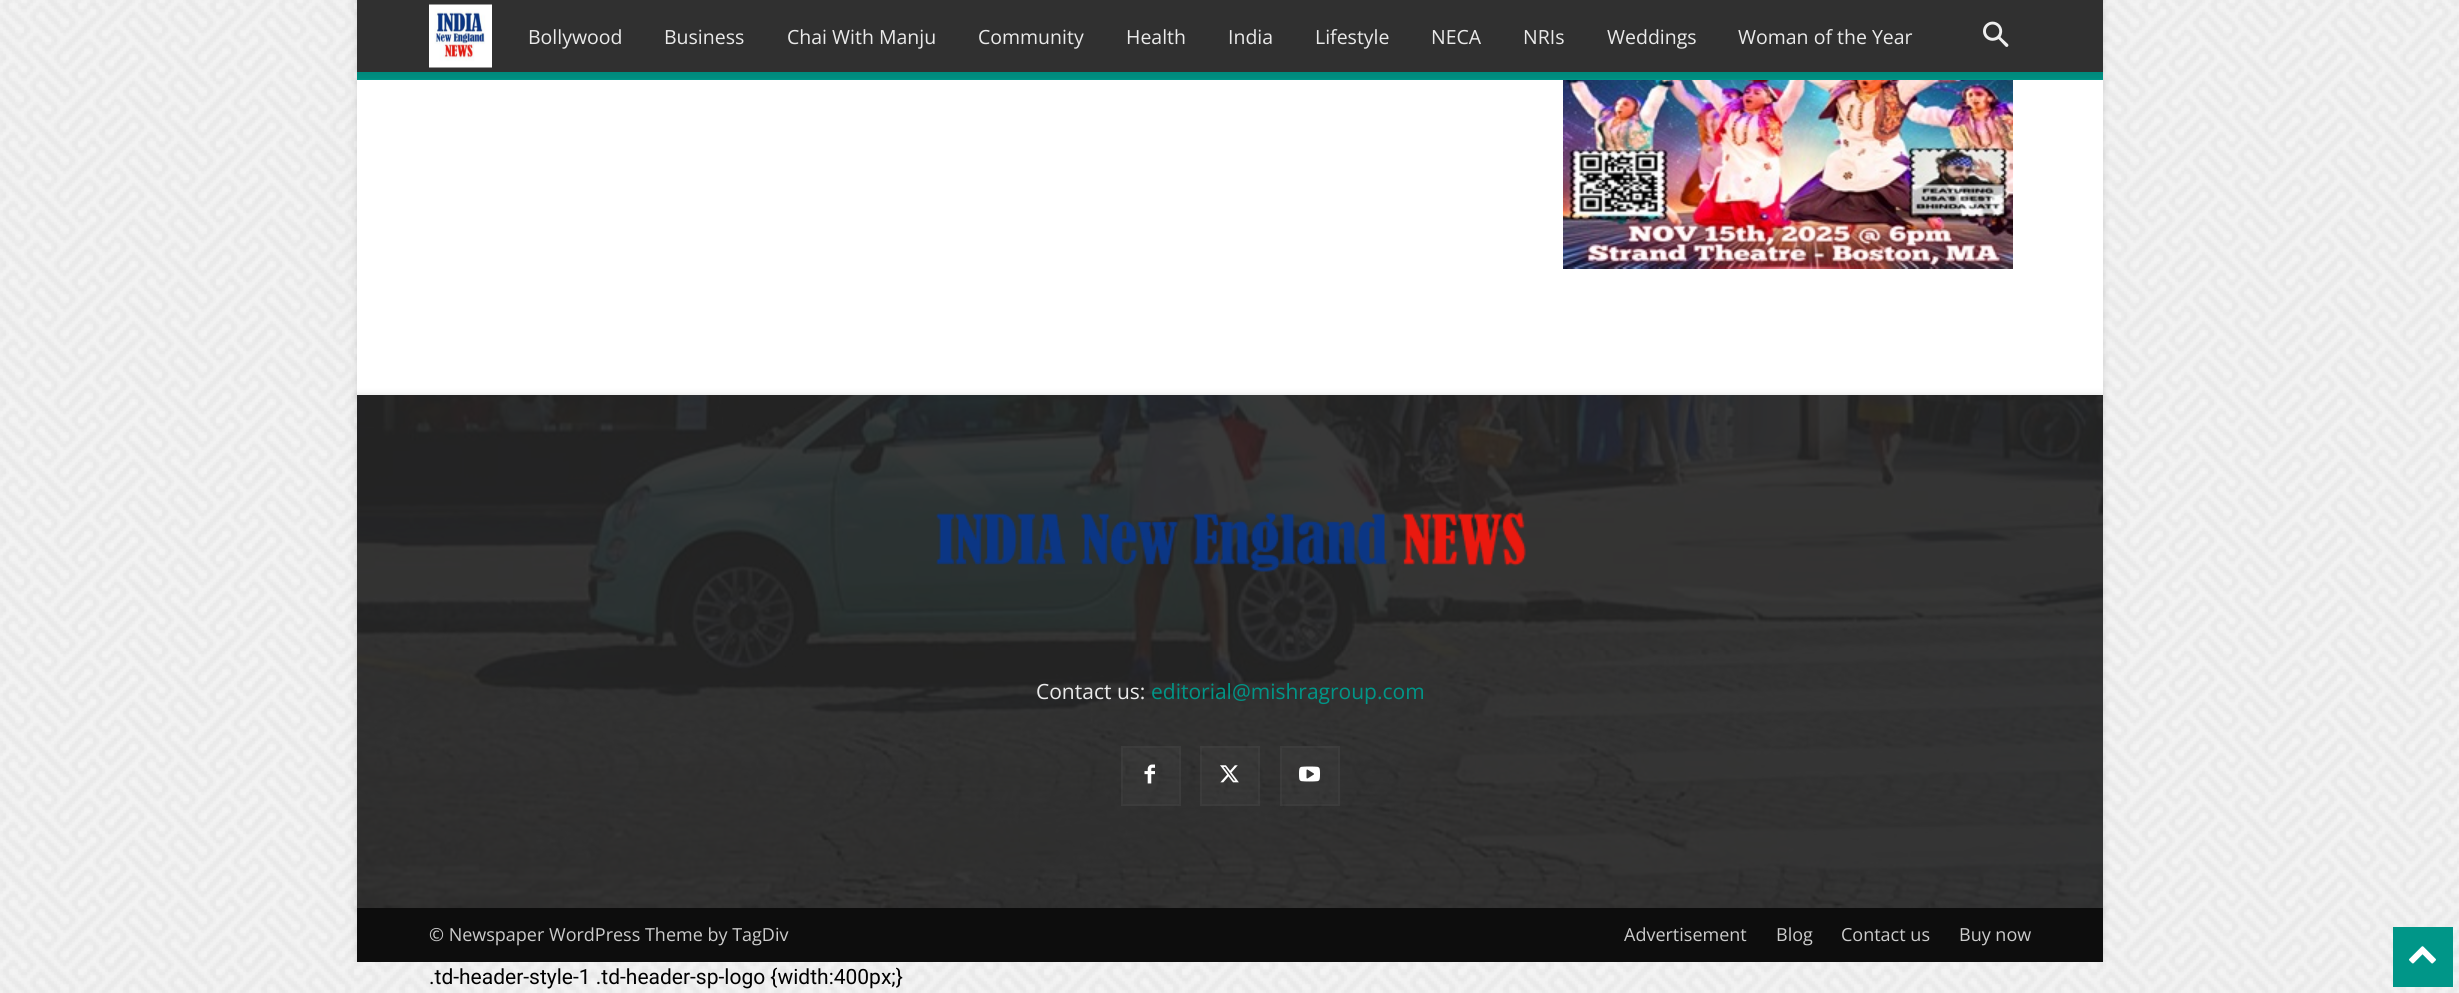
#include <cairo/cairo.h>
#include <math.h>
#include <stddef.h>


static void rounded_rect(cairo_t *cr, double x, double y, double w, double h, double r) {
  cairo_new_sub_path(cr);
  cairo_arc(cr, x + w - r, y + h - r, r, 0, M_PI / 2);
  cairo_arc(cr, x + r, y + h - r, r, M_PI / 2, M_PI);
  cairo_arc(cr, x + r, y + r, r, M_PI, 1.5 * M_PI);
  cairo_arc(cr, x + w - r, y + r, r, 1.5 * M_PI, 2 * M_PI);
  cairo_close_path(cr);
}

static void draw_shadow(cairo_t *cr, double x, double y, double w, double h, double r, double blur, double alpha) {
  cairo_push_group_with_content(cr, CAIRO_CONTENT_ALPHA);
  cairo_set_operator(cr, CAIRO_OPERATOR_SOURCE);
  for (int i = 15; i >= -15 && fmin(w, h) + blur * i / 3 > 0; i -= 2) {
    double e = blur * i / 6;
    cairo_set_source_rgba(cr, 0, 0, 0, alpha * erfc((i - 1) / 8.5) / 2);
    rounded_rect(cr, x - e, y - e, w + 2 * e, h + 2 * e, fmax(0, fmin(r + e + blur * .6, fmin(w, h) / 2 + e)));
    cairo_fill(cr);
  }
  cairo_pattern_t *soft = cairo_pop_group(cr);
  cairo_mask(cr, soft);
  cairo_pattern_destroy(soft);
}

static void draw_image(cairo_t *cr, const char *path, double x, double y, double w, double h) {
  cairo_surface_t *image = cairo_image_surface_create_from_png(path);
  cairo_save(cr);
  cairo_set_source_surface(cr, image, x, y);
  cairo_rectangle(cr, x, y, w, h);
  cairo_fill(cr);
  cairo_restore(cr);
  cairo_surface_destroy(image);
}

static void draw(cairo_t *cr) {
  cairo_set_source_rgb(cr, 1, 1, 1);
  cairo_paint(cr);
  draw_image(cr, "images/1.png", 0, 0, 2459, 993);
  cairo_set_source_rgb(cr, 0, 0, 0);
  draw_shadow(cr, 357, -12, 1746, 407, 0, 4, 0.12);
  cairo_set_source_rgb(cr, 1, 1, 1);
  cairo_rectangle(cr, 357, 80, 1746, 315);
  cairo_fill(cr);
  draw_image(cr, "images/2.png", 1563, 80, 450, 189);
  cairo_set_source_rgb(cr, 48 / 255.0, 48 / 255.0, 48 / 255.0);
  cairo_rectangle(cr, 357, 0, 1746, 72);
  cairo_fill(cr);
  draw_image(cr, "images/3.png", 429, 4, 63, 64);
  draw_image(cr, "images/4.png", 1983, 21, 26, 26);
  cairo_set_source_rgb(cr, 0, 150 / 255.0, 136 / 255.0);
  cairo_rectangle(cr, 357, 72, 1746, 8);
  cairo_fill(cr);
  draw_image(cr, "images/5.png", 357, 72, 1746, 7);
  cairo_save(cr);
  cairo_rectangle(cr, 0, 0, 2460, 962);
  cairo_clip(cr);
  cairo_set_source_rgb(cr, 0, 0, 0);
  draw_shadow(cr, 357, 908, 1746, 54, 0, 4, 0.12);
  cairo_restore(cr);
  cairo_set_source_rgb(cr, 13 / 255.0, 13 / 255.0, 13 / 255.0);
  cairo_rectangle(cr, 357, 908, 1746, 54);
  cairo_fill(cr);
  cairo_set_source_rgb(cr, 0, 0, 0);
  draw_shadow(cr, 357, 395, 1746, 513, 0, 4, 0.12);
  cairo_set_source_rgb(cr, 34 / 255.0, 34 / 255.0, 34 / 255.0);
  cairo_rectangle(cr, 357, 395, 1746, 513);
  cairo_fill(cr);
  draw_image(cr, "images/6.png", 357, 395, 1746, 513);
  draw_image(cr, "images/7.png", 936, 512, 590, 60);
  cairo_set_source_rgba(cr, 1, 1, 1, 0.03);
  cairo_rectangle(cr, 1121, 746, 60, 60);
  cairo_fill(cr);
  draw_image(cr, "images/8.png", 1144, 764, 11, 20);
  cairo_rectangle(cr, 1122, 747, 58, 58);
  cairo_stroke(cr);
  cairo_rectangle(cr, 1200, 746, 60, 60);
  cairo_fill(cr);
  draw_image(cr, "images/9.png", 1220, 765, 19, 18);
  cairo_rectangle(cr, 1201, 747, 58, 58);
  cairo_stroke(cr);
  cairo_rectangle(cr, 1280, 746, 60, 60);
  cairo_fill(cr);
  draw_image(cr, "images/10.png", 1299, 766, 21, 16);
  cairo_rectangle(cr, 1281, 747, 58, 58);
  cairo_stroke(cr);
  cairo_set_source_rgb(cr, 0, 150 / 255.0, 136 / 255.0);
  cairo_rectangle(cr, 2393, 927, 60, 60);
  cairo_fill(cr);
  draw_image(cr, "images/11.png", 2409, 946, 27, 18);
  cairo_select_font_face(cr, "Open Sans", CAIRO_FONT_SLANT_NORMAL, CAIRO_FONT_WEIGHT_NORMAL);
  cairo_set_font_size(cr, 19.5);
  cairo_set_source_rgb(cr, 234 / 255.0, 234 / 255.0, 234 / 255.0);
  cairo_move_to(cr, 528, 44);
  cairo_show_text(cr, "Bollywood");
  cairo_move_to(cr, 664, 44);
  cairo_show_text(cr, "Business");
  cairo_move_to(cr, 787, 44);
  cairo_show_text(cr, "Chai With Manju");
  cairo_move_to(cr, 978, 44);
  cairo_show_text(cr, "Community");
  cairo_move_to(cr, 1126, 44);
  cairo_show_text(cr, "Health");
  cairo_move_to(cr, 1228, 44);
  cairo_show_text(cr, "India");
  cairo_move_to(cr, 1315, 44);
  cairo_show_text(cr, "Lifestyle");
  cairo_move_to(cr, 1431, 44);
  cairo_show_text(cr, "NECA");
  cairo_move_to(cr, 1523, 44);
  cairo_show_text(cr, "NRIs");
  cairo_move_to(cr, 1607, 44);
  cairo_show_text(cr, "Weddings");
  cairo_move_to(cr, 1738, 44);
  cairo_show_text(cr, "Woman of the Year");
  cairo_set_font_size(cr, 21);
  cairo_move_to(cr, 1036, 699);
  cairo_show_text(cr, "Contact us:");
  cairo_set_source_rgb(cr, 0, 150 / 255.0, 136 / 255.0);
  cairo_move_to(cr, 1151, 699);
  cairo_show_text(cr, "editorial@mishragroup.com");
  cairo_set_font_size(cr, 18);
  cairo_set_source_rgb(cr, 204 / 255.0, 204 / 255.0, 204 / 255.0);
  cairo_move_to(cr, 429, 941);
  cairo_show_text(cr, "© Newspaper WordPress Theme by TagDiv");
  cairo_move_to(cr, 1624, 941);
  cairo_show_text(cr, "Advertisement");
  cairo_move_to(cr, 1776, 941);
  cairo_show_text(cr, "Blog");
  cairo_move_to(cr, 1841, 941);
  cairo_show_text(cr, "Contact us");
  cairo_move_to(cr, 1959, 941);
  cairo_show_text(cr, "Buy now");
  cairo_select_font_face(cr, "Roboto", CAIRO_FONT_SLANT_NORMAL, CAIRO_FONT_WEIGHT_NORMAL);
  cairo_set_font_size(cr, 21);
  cairo_set_source_rgb(cr, 0, 0, 0);
  cairo_move_to(cr, 429, 984);
  cairo_show_text(cr, ".td-header-style-1 .td-header-sp-logo {width:400px;}");
}

int main(void) {
  cairo_surface_t *surface = cairo_image_surface_create(CAIRO_FORMAT_RGB24, 2459, 993);
  cairo_t *cr = cairo_create(surface);
  cairo_font_options_t *options = cairo_font_options_create();
  cairo_font_options_set_hint_metrics(options, CAIRO_HINT_METRICS_OFF);
  cairo_font_options_set_hint_style(options, CAIRO_HINT_STYLE_NONE);
  cairo_set_font_options(cr, options);
  cairo_set_miter_limit(cr, 4);
  draw(cr);
  cairo_surface_write_to_png(surface, "out.png");
  cairo_font_options_destroy(options);
  cairo_destroy(cr);
  cairo_surface_destroy(surface);
  return 0;
}
